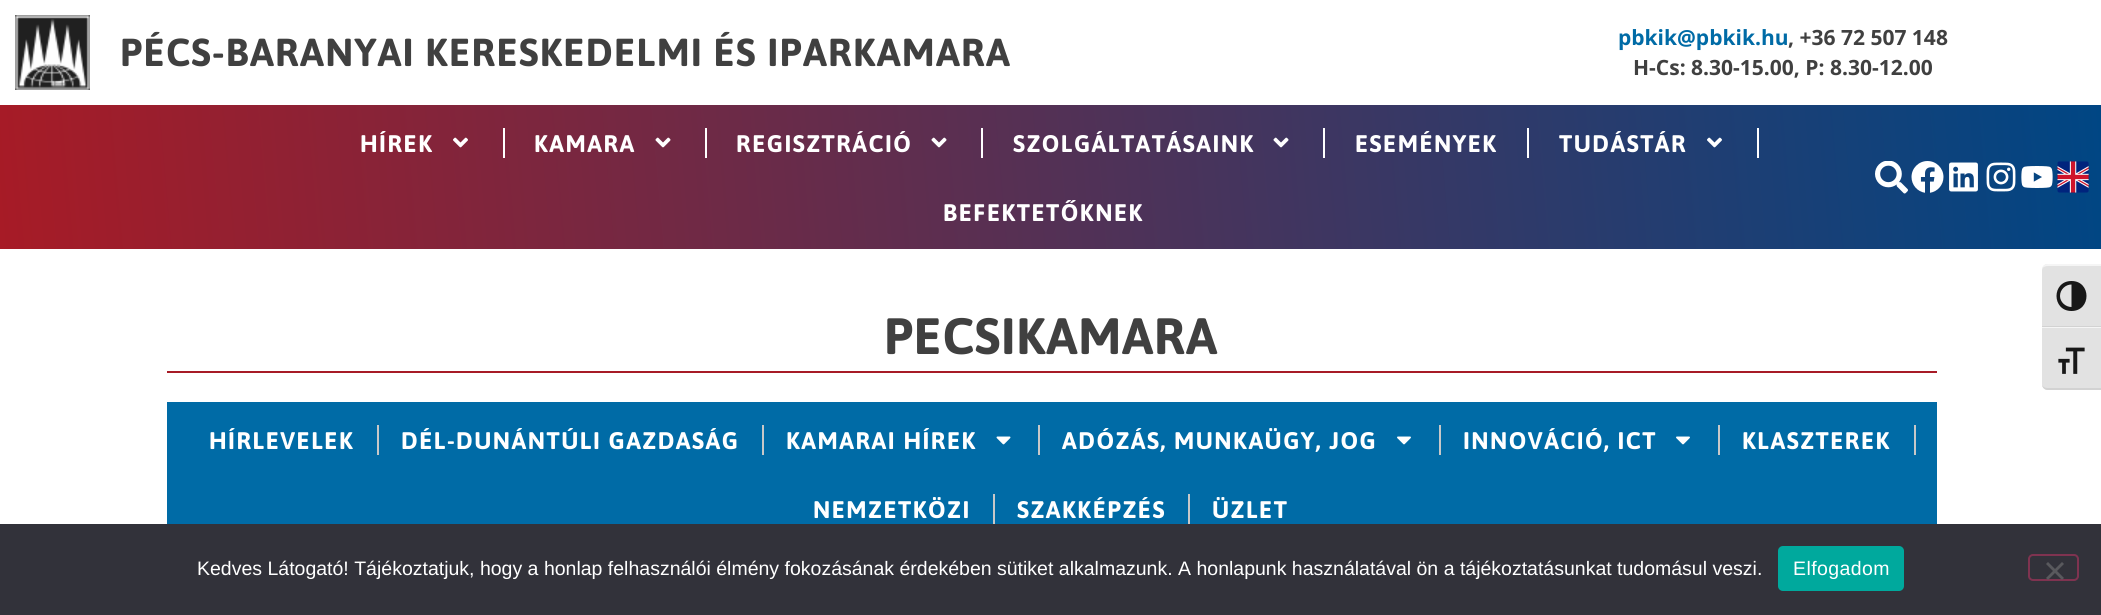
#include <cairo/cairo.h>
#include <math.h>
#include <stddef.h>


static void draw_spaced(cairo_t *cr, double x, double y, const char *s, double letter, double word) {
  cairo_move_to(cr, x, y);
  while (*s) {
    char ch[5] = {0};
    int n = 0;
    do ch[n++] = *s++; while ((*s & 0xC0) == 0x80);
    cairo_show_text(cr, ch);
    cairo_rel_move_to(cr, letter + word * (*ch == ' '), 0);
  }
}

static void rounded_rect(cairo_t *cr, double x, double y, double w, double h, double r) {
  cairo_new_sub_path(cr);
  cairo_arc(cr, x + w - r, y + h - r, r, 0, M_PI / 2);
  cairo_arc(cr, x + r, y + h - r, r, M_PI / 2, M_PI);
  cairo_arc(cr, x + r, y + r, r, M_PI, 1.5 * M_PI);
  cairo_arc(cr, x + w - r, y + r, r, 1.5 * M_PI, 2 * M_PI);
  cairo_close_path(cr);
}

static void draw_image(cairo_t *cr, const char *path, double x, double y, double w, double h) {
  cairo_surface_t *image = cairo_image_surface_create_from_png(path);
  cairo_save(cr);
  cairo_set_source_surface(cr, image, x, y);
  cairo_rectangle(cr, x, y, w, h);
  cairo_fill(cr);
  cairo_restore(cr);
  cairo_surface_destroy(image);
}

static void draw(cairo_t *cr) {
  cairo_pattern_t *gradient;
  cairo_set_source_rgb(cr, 1, 1, 1);
  cairo_paint(cr);
  draw_image(cr, "images/1.png", 15, 15, 75, 75);
  gradient = cairo_pattern_create_linear(2100, 85, 1.7, 269);
  cairo_pattern_add_color_stop_rgba(gradient, 0, 0, 70 / 255.0, 132 / 255.0, 1);
  cairo_pattern_add_color_stop_rgba(gradient, 1, 167 / 255.0, 27 / 255.0, 38 / 255.0, 1);
  cairo_set_source(cr, gradient);
  cairo_pattern_destroy(gradient);
  cairo_rectangle(cr, 0, 105, 2101, 144);
  cairo_fill(cr);
  draw_image(cr, "images/2.png", 453, 137, 15, 11);
  cairo_set_source_rgb(cr, 1, 1, 1);
  cairo_rectangle(cr, 503, 128, 2, 30);
  cairo_fill(cr);
  draw_image(cr, "images/3.png", 655, 137, 16, 11);
  cairo_rectangle(cr, 705, 128, 2, 30);
  cairo_fill(cr);
  draw_image(cr, "images/4.png", 931, 137, 16, 11);
  cairo_rectangle(cr, 981, 128, 2, 30);
  cairo_fill(cr);
  draw_image(cr, "images/5.png", 1273, 137, 16, 11);
  cairo_rectangle(cr, 1323, 128, 2, 30);
  cairo_fill(cr);
  cairo_rectangle(cr, 1527, 128, 2, 30);
  cairo_fill(cr);
  draw_image(cr, "images/6.png", 1707, 137, 15, 11);
  cairo_rectangle(cr, 1757, 128, 2, 30);
  cairo_fill(cr);
  draw_image(cr, "images/7.png", 1875, 161, 33, 33);
  draw_image(cr, "images/8.png", 1911, 161, 33, 32);
  draw_image(cr, "images/9.png", 1949, 162, 29, 30);
  draw_image(cr, "images/10.png", 1986, 162, 30, 30);
  draw_image(cr, "images/11.png", 2021, 166, 32, 22);
  draw_image(cr, "images/12.png", 2057, 161, 32, 32);
  cairo_set_source_rgb(cr, 167 / 255.0, 27 / 255.0, 38 / 255.0);
  cairo_rectangle(cr, 167, 371, 1770, 2);
  cairo_fill(cr);
  cairo_set_source_rgb(cr, 226 / 255.0, 226 / 255.0, 226 / 255.0);
  cairo_new_path(cr);
  cairo_move_to(cr, 2048, 264);
  cairo_line_to(cr, 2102, 264);
  cairo_line_to(cr, 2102, 327);
  cairo_line_to(cr, 2042, 327);
  cairo_line_to(cr, 2042, 270);
  cairo_curve_to(cr, 2042, 266.5, 2044.5, 264, 2048, 264);
  cairo_close_path(cr);
  cairo_fill(cr);
  cairo_set_source_rgb(cr, 245 / 255.0, 245 / 255.0, 245 / 255.0);
  cairo_new_path(cr);
  cairo_move_to(cr, 2048, 264);
  cairo_curve_to(cr, 2044, 264, 2042, 267, 2042, 270);
  cairo_curve_to(cr, 2042, 268, 2044, 266, 2048, 266);
  cairo_line_to(cr, 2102, 266);
  cairo_line_to(cr, 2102, 264);
  cairo_close_path(cr);
  cairo_fill(cr);
  cairo_set_source_rgb(cr, 210 / 255.0, 210 / 255.0, 210 / 255.0);
  cairo_rectangle(cr, 2042, 326, 59, 1);
  cairo_fill(cr);
  cairo_set_source_rgb(cr, 24 / 255.0, 24 / 255.0, 24 / 255.0);
  cairo_new_path(cr);
  cairo_move_to(cr, 2071.5, 281);
  cairo_curve_to(cr, 2051.5, 281, 2051.5, 311, 2071.5, 311);
  cairo_curve_to(cr, 2091.5, 311, 2091.5, 281, 2071.5, 281);
  cairo_close_path(cr);
  cairo_move_to(cr, 2060, 296);
  cairo_curve_to(cr, 2060, 289.5, 2065.5, 284.5, 2071.5, 284.5);
  cairo_line_to(cr, 2071.5, 307);
  cairo_curve_to(cr, 2065.5, 307, 2060, 302, 2060, 296);
  cairo_close_path(cr);
  cairo_fill(cr);
  cairo_set_source_rgb(cr, 226 / 255.0, 226 / 255.0, 226 / 255.0);
  cairo_new_path(cr);
  cairo_move_to(cr, 2042, 327);
  cairo_line_to(cr, 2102, 327);
  cairo_line_to(cr, 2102, 390);
  cairo_line_to(cr, 2048, 390);
  cairo_curve_to(cr, 2044.5, 390, 2042, 387.5, 2042, 384);
  cairo_close_path(cr);
  cairo_fill(cr);
  cairo_set_source_rgb(cr, 245 / 255.0, 245 / 255.0, 245 / 255.0);
  cairo_rectangle(cr, 2042, 327, 59, 1);
  cairo_fill(cr);
  cairo_set_source_rgb(cr, 210 / 255.0, 210 / 255.0, 210 / 255.0);
  cairo_new_path(cr);
  cairo_move_to(cr, 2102, 390);
  cairo_line_to(cr, 2048, 390);
  cairo_curve_to(cr, 2044, 390, 2042, 387, 2042, 384);
  cairo_curve_to(cr, 2042, 386, 2044, 388, 2048, 388);
  cairo_line_to(cr, 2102, 388);
  cairo_close_path(cr);
  cairo_fill(cr);
  draw_image(cr, "images/13.png", 2058, 347, 27, 27);
  cairo_set_source_rgb(cr, 0, 107 / 255.0, 166 / 255.0);
  cairo_rectangle(cr, 167, 402, 1770, 122);
  cairo_fill(cr);
  cairo_set_source_rgb(cr, 200 / 255.0, 200 / 255.0, 200 / 255.0);
  cairo_rectangle(cr, 377, 425, 2, 30);
  cairo_fill(cr);
  cairo_rectangle(cr, 762, 425, 2, 30);
  cairo_fill(cr);
  draw_image(cr, "images/14.png", 996, 436, 15, 9);
  cairo_rectangle(cr, 1038, 425, 2, 30);
  cairo_fill(cr);
  draw_image(cr, "images/15.png", 1397, 436, 14, 9);
  cairo_rectangle(cr, 1439, 425, 2, 30);
  cairo_fill(cr);
  draw_image(cr, "images/15.png", 1676, 436, 14, 9);
  cairo_rectangle(cr, 1718, 425, 2, 30);
  cairo_fill(cr);
  cairo_rectangle(cr, 1914, 425, 2, 30);
  cairo_fill(cr);
  cairo_rectangle(cr, 993, 494, 2, 30);
  cairo_fill(cr);
  cairo_rectangle(cr, 1188, 494, 2, 30);
  cairo_fill(cr);
  cairo_set_source_rgb(cr, 50 / 255.0, 50 / 255.0, 58 / 255.0);
  cairo_rectangle(cr, 0, 524, 2101, 91);
  cairo_fill(cr);
  cairo_set_source_rgb(cr, 0, 169 / 255.0, 157 / 255.0);
  rounded_rect(cr, 1778, 546, 126, 45, 5);
  cairo_fill(cr);
  rounded_rect(cr, 2029, 555, 49, 25, 4);
  cairo_set_source_rgb(cr, 127 / 255.0, 51 / 255.0, 80 / 255.0);
  cairo_stroke(cr);
  cairo_set_source_rgb(cr, 89 / 255.0, 89 / 255.0, 93 / 255.0);
  cairo_new_path(cr);
  cairo_move_to(cr, 2062, 562);
  cairo_line_to(cr, 2064, 564);
  cairo_line_to(cr, 2048, 580);
  cairo_line_to(cr, 2046, 578);
  cairo_close_path(cr);
  cairo_fill(cr);
  cairo_new_path(cr);
  cairo_move_to(cr, 2046, 564);
  cairo_line_to(cr, 2048, 562);
  cairo_line_to(cr, 2064, 578);
  cairo_line_to(cr, 2062, 580);
  cairo_close_path(cr);
  cairo_fill(cr);
  cairo_select_font_face(cr, "Asap", CAIRO_FONT_SLANT_NORMAL, CAIRO_FONT_WEIGHT_BOLD);
  cairo_set_font_size(cr, 39);
  cairo_set_source_rgb(cr, 64 / 255.0, 64 / 255.0, 64 / 255.0);
  draw_spaced(cr, 120, 66, "PÉCS-BARANYAI KERESKEDELMI ÉS IPARKAMARA", 1.2, 0);
  cairo_select_font_face(cr, "Open Sans", CAIRO_FONT_SLANT_NORMAL, CAIRO_FONT_WEIGHT_BOLD);
  cairo_set_font_size(cr, 21);
  cairo_set_source_rgb(cr, 0, 107 / 255.0, 166 / 255.0);
  cairo_move_to(cr, 1618, 45);
  cairo_show_text(cr, "pbkik@pbkik.hu");
  cairo_set_source_rgb(cr, 64 / 255.0, 64 / 255.0, 64 / 255.0);
  cairo_move_to(cr, 1788, 45);
  cairo_show_text(cr, ", +36 72 507 148");
  cairo_move_to(cr, 1633, 75);
  cairo_show_text(cr, "H-Cs: 8.30-15.00, P: 8.30-12.00");
  cairo_select_font_face(cr, "Asap", CAIRO_FONT_SLANT_NORMAL, CAIRO_FONT_WEIGHT_BOLD);
  cairo_set_font_size(cr, 24);
  cairo_set_source_rgb(cr, 1, 1, 1);
  draw_spaced(cr, 360, 152, "HÍREK", 1.5, 0);
  draw_spaced(cr, 534, 152, "KAMARA", 1.5, 0);
  draw_spaced(cr, 736, 152, "REGISZTRÁCIÓ", 1.5, 0);
  draw_spaced(cr, 1013, 152, "SZOLGÁLTATÁSAINK", 1.5, 0);
  draw_spaced(cr, 1355, 152, "ESEMÉNYEK", 1.5, 0);
  draw_spaced(cr, 1559, 152, "TUDÁSTÁR", 1.5, 0);
  draw_spaced(cr, 943, 221, "BEFEKTETŐKNEK", 1.5, 0);
  cairo_set_font_size(cr, 51);
  cairo_set_source_rgb(cr, 64 / 255.0, 64 / 255.0, 64 / 255.0);
  draw_spaced(cr, 884, 354, "PECSIKAMARA", 0.75, 0);
  cairo_set_font_size(cr, 24);
  cairo_set_source_rgb(cr, 1, 1, 1);
  draw_spaced(cr, 209, 449, "HÍRLEVELEK", 1.5, 0);
  draw_spaced(cr, 401, 449, "DÉL-DUNÁNTÚLI GAZDASÁG", 1.5, 0);
  draw_spaced(cr, 786, 449, "KAMARAI HÍREK", 1.5, 0);
  draw_spaced(cr, 1062, 449, "ADÓZÁS, MUNKAÜGY, JOG", 1.5, 0);
  draw_spaced(cr, 1463, 449, "INNOVÁCIÓ, ICT", 1.5, 0);
  draw_spaced(cr, 1742, 449, "KLASZTEREK", 1.5, 0);
  draw_spaced(cr, 813, 518, "NEMZETKÖZI", 1.5, 0);
  draw_spaced(cr, 1017, 518, "SZAKKÉPZÉS", 1.5, 0);
  draw_spaced(cr, 1212, 518, "ÜZLET", 1.5, 0);
  cairo_select_font_face(cr, "Liberation Sans", CAIRO_FONT_SLANT_NORMAL, CAIRO_FONT_WEIGHT_NORMAL);
  cairo_set_font_size(cr, 19.5);
  cairo_move_to(cr, 197, 575);
  cairo_show_text(cr, "Kedves Látogató! Tájékoztatjuk, hogy a honlap felhasználói élmény fokozásának érdekében sütiket alkalmazunk. A honlapunk használatával ön a tájékoztatásunkat tudomásul veszi.");
  draw_spaced(cr, 1793, 575, "Elfogadom", 0.4, 0);
}

int main(void) {
  cairo_surface_t *surface = cairo_image_surface_create(CAIRO_FORMAT_RGB24, 2101, 615);
  cairo_t *cr = cairo_create(surface);
  cairo_font_options_t *options = cairo_font_options_create();
  cairo_font_options_set_hint_metrics(options, CAIRO_HINT_METRICS_OFF);
  cairo_font_options_set_hint_style(options, CAIRO_HINT_STYLE_NONE);
  cairo_set_font_options(cr, options);
  cairo_set_miter_limit(cr, 4);
  draw(cr);
  cairo_surface_write_to_png(surface, "out.png");
  cairo_font_options_destroy(options);
  cairo_destroy(cr);
  cairo_surface_destroy(surface);
  return 0;
}
